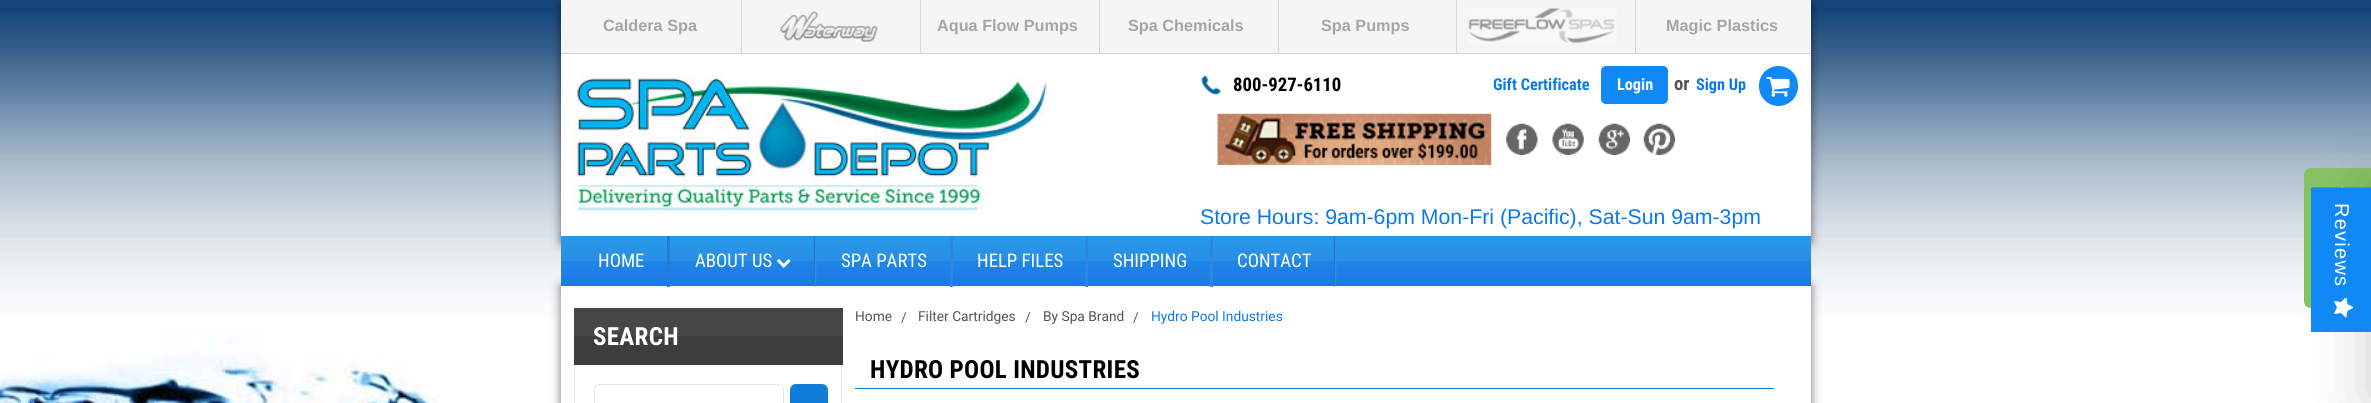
#include <cairo/cairo.h>
#include <math.h>
#include <stddef.h>


static void draw_spaced(cairo_t *cr, double x, double y, const char *s, double letter, double word) {
  cairo_move_to(cr, x, y);
  while (*s) {
    char ch[5] = {0};
    int n = 0;
    do ch[n++] = *s++; while ((*s & 0xC0) == 0x80);
    cairo_show_text(cr, ch);
    cairo_rel_move_to(cr, letter + word * (*ch == ' '), 0);
  }
}

static void rounded_rect(cairo_t *cr, double x, double y, double w, double h, double r) {
  cairo_new_sub_path(cr);
  cairo_arc(cr, x + w - r, y + h - r, r, 0, M_PI / 2);
  cairo_arc(cr, x + r, y + h - r, r, M_PI / 2, M_PI);
  cairo_arc(cr, x + r, y + r, r, M_PI, 1.5 * M_PI);
  cairo_arc(cr, x + w - r, y + r, r, 1.5 * M_PI, 2 * M_PI);
  cairo_close_path(cr);
}

static void draw_shadow(cairo_t *cr, double x, double y, double w, double h, double r, double blur, double alpha) {
  cairo_push_group_with_content(cr, CAIRO_CONTENT_ALPHA);
  cairo_set_operator(cr, CAIRO_OPERATOR_SOURCE);
  for (int i = 15; i >= -15 && fmin(w, h) + blur * i / 3 > 0; i -= 2) {
    double e = blur * i / 6;
    cairo_set_source_rgba(cr, 0, 0, 0, alpha * erfc((i - 1) / 8.5) / 2);
    rounded_rect(cr, x - e, y - e, w + 2 * e, h + 2 * e, fmax(0, fmin(r + e + blur * .6, fmin(w, h) / 2 + e)));
    cairo_fill(cr);
  }
  cairo_pattern_t *soft = cairo_pop_group(cr);
  cairo_mask(cr, soft);
  cairo_pattern_destroy(soft);
}

static void draw_image(cairo_t *cr, const char *path, double x, double y, double w, double h) {
  cairo_surface_t *image = cairo_image_surface_create_from_png(path);
  cairo_save(cr);
  cairo_set_source_surface(cr, image, x, y);
  cairo_rectangle(cr, x, y, w, h);
  cairo_fill(cr);
  cairo_restore(cr);
  cairo_surface_destroy(image);
}

static void draw(cairo_t *cr) {
  cairo_pattern_t *gradient;
  cairo_set_source_rgb(cr, 20 / 255.0, 69 / 255.0, 121 / 255.0);
  cairo_paint(cr);
  draw_image(cr, "images/1.png", 0, 12, 2371, 391);
  cairo_set_source_rgb(cr, 0, 0, 0);
  draw_shadow(cr, 561, 6, 1250, 237, 0, 5, 0.55);
  cairo_set_source_rgb(cr, 1, 1, 1);
  cairo_rectangle(cr, 561, 54, 1250, 182);
  cairo_fill(cr);
  cairo_set_source_rgb(cr, 245 / 255.0, 245 / 255.0, 245 / 255.0);
  cairo_rectangle(cr, 561, 0, 1250, 53);
  cairo_fill(cr);
  cairo_set_source_rgb(cr, 213 / 255.0, 213 / 255.0, 213 / 255.0);
  cairo_rectangle(cr, 561, 53, 1250, 1);
  cairo_fill(cr);
  cairo_rectangle(cr, 741, 0, 1, 53);
  cairo_fill(cr);
  draw_image(cr, "images/2.png", 780, 11, 98, 31);
  cairo_rectangle(cr, 920, 0, 1, 53);
  cairo_fill(cr);
  cairo_rectangle(cr, 1099, 0, 1, 53);
  cairo_fill(cr);
  cairo_rectangle(cr, 1278, 0, 1, 53);
  cairo_fill(cr);
  cairo_rectangle(cr, 1456, 0, 1, 53);
  cairo_fill(cr);
  draw_image(cr, "images/3.png", 1468, 8, 149, 35);
  cairo_rectangle(cr, 1635, 0, 1, 53);
  cairo_fill(cr);
  draw_image(cr, "images/4.png", 573, 75, 475, 139);
  draw_image(cr, "images/5.png", 1201, 75, 21, 20);
  cairo_set_source_rgb(cr, 16 / 255.0, 137 / 255.0, 247 / 255.0);
  rounded_rect(cr, 1601, 66, 67, 38, 5);
  cairo_fill(cr);
  rounded_rect(cr, 1759, 66, 39, 40, 19.5);
  cairo_fill(cr);
  draw_image(cr, "images/6.png", 1766, 77, 24, 20);
  draw_image(cr, "images/7.png", 1217, 113, 275, 52);
  draw_image(cr, "images/8.png", 1506, 123, 32, 32);
  draw_image(cr, "images/9.png", 1552, 123, 32, 32);
  draw_image(cr, "images/10.png", 1598, 123, 32, 32);
  draw_image(cr, "images/11.png", 1643, 123, 32, 32);
  cairo_set_source_rgb(cr, 134 / 255.0, 196 / 255.0, 98 / 255.0);
  cairo_new_path(cr);
  cairo_move_to(cr, 2371, 168);
  cairo_line_to(cr, 2371, 308);
  cairo_line_to(cr, 2311, 308);
  cairo_curve_to(cr, 2307, 308, 2304, 305, 2304, 301);
  cairo_line_to(cr, 2304, 176);
  cairo_curve_to(cr, 2304, 171, 2307, 168, 2311, 168);
  cairo_close_path(cr);
  cairo_fill(cr);
  draw_image(cr, "images/12.png", 2341, 186, 2, 2);
  cairo_set_source_rgb(cr, 0, 0, 0);
  draw_shadow(cr, 561, 286, 1250, 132, 0, 5, 0.55);
  gradient = cairo_pattern_create_linear(1186, 236, 1186, 286);
  cairo_pattern_add_color_stop_rgba(gradient, 0, 41 / 255.0, 154 / 255.0, 231 / 255.0, 1);
  cairo_pattern_add_color_stop_rgba(gradient, 0.5, 41 / 255.0, 141 / 255.0, 231 / 255.0, 1);
  cairo_pattern_add_color_stop_rgba(gradient, 0.5, 30 / 255.0, 134 / 255.0, 230 / 255.0, 1);
  cairo_pattern_add_color_stop_rgba(gradient, 1, 30 / 255.0, 119 / 255.0, 230 / 255.0, 1);
  cairo_set_source(cr, gradient);
  cairo_pattern_destroy(gradient);
  cairo_rectangle(cr, 561, 236, 1250, 50);
  cairo_fill(cr);
  cairo_set_source_rgb(cr, 1, 1, 1);
  cairo_rectangle(cr, 561, 286, 1250, 117);
  cairo_fill(cr);
  cairo_set_source_rgb(cr, 34 / 255.0, 125 / 255.0, 212 / 255.0);
  cairo_rectangle(cr, 667, 236, 3, 51);
  cairo_fill(cr);
  draw_image(cr, "images/13.png", 813, 236, 4, 51);
  draw_image(cr, "images/14.png", 777, 259, 14, 9);
  cairo_set_source_rgb(cr, 44 / 255.0, 136 / 255.0, 223 / 255.0);
  cairo_rectangle(cr, 950, 236, 3, 51);
  cairo_fill(cr);
  cairo_rectangle(cr, 1085, 236, 3, 51);
  cairo_fill(cr);
  cairo_rectangle(cr, 1210, 236, 3, 51);
  cairo_fill(cr);
  draw_image(cr, "images/15.png", 1333, 236, 4, 51);
  cairo_set_source_rgb(cr, 0, 0, 0);
  draw_shadow(cr, 2370, 190, 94, 211, 0, 31, 0.2);
  cairo_set_source_rgb(cr, 16 / 255.0, 137 / 255.0, 247 / 255.0);
  cairo_rectangle(cr, 2311, 188, 60, 144);
  cairo_fill(cr);
  cairo_new_path(cr);
  cairo_move_to(cr, 2370.5, 188);
  cairo_line_to(cr, 2370.5, 331);
  cairo_line_to(cr, 2312, 331);
  cairo_line_to(cr, 2312, 188);
  cairo_close_path(cr);
  cairo_set_line_width(cr, 1.2);
  cairo_stroke(cr);
  draw_image(cr, "images/16.png", 2334, 298, 20, 20);
  cairo_set_source_rgb(cr, 71 / 255.0, 71 / 255.0, 71 / 255.0);
  cairo_rectangle(cr, 574, 308, 269, 28);
  cairo_fill(cr);
  cairo_set_source_rgb(cr, 61 / 255.0, 61 / 255.0, 61 / 255.0);
  cairo_rectangle(cr, 574, 336, 269, 29);
  cairo_fill(cr);
  cairo_set_source_rgb(cr, 229 / 255.0, 229 / 255.0, 229 / 255.0);
  cairo_rectangle(cr, 841, 365, 1, 38);
  cairo_fill(cr);
  cairo_rectangle(cr, 574, 365, 1, 38);
  cairo_fill(cr);
  rounded_rect(cr, 594.5, 384.5, 189, 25, 5.5);
  cairo_set_line_width(cr, 1);
  cairo_stroke(cr);
  cairo_set_source_rgb(cr, 13 / 255.0, 125 / 255.0, 215 / 255.0);
  rounded_rect(cr, 790, 384, 38, 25, 6);
  cairo_fill(cr);
  cairo_rectangle(cr, 855, 388, 919, 1);
  cairo_fill(cr);
  cairo_select_font_face(cr, "Liberation Sans", CAIRO_FONT_SLANT_NORMAL, CAIRO_FONT_WEIGHT_BOLD);
  cairo_set_font_size(cr, 16.25);
  cairo_set_source_rgb(cr, 165 / 255.0, 165 / 255.0, 165 / 255.0);
  cairo_move_to(cr, 603, 31);
  cairo_show_text(cr, "Caldera Spa");
  cairo_move_to(cr, 937, 31);
  cairo_show_text(cr, "Aqua Flow Pumps");
  cairo_move_to(cr, 1128, 31);
  cairo_show_text(cr, "Spa Chemicals");
  cairo_move_to(cr, 1321, 31);
  cairo_show_text(cr, "Spa Pumps");
  cairo_move_to(cr, 1666, 31);
  cairo_show_text(cr, "Magic Plastics");
  cairo_select_font_face(cr, "Roboto Condensed", CAIRO_FONT_SLANT_NORMAL, CAIRO_FONT_WEIGHT_BOLD);
  cairo_set_font_size(cr, 18.75);
  cairo_set_source_rgb(cr, 0, 0, 0);
  cairo_move_to(cr, 1233, 91);
  cairo_show_text(cr, "800-927-6110");
  cairo_set_font_size(cr, 16.25);
  cairo_set_source_rgb(cr, 11 / 255.0, 121 / 255.0, 234 / 255.0);
  cairo_move_to(cr, 1493, 90);
  cairo_show_text(cr, "Gift Certificate");
  cairo_set_source_rgb(cr, 1, 1, 1);
  cairo_move_to(cr, 1617, 90);
  cairo_show_text(cr, "Login");
  cairo_set_font_size(cr, 18.75);
  cairo_set_source_rgb(cr, 84 / 255.0, 84 / 255.0, 84 / 255.0);
  cairo_move_to(cr, 1674, 90);
  cairo_show_text(cr, "or");
  cairo_set_font_size(cr, 16.25);
  cairo_set_source_rgb(cr, 11 / 255.0, 121 / 255.0, 234 / 255.0);
  cairo_move_to(cr, 1696, 90);
  cairo_show_text(cr, "Sign Up");
  cairo_select_font_face(cr, "Liberation Sans", CAIRO_FONT_SLANT_NORMAL, CAIRO_FONT_WEIGHT_NORMAL);
  cairo_set_font_size(cr, 21.25);
  cairo_move_to(cr, 1200, 224);
  cairo_show_text(cr, "Store Hours: 9am-6pm Mon-Fri (Pacific), Sat-Sun 9am-3pm");
  cairo_select_font_face(cr, "Roboto Condensed", CAIRO_FONT_SLANT_NORMAL, CAIRO_FONT_WEIGHT_NORMAL);
  cairo_set_font_size(cr, 18.75);
  cairo_set_source_rgb(cr, 1, 1, 1);
  cairo_move_to(cr, 598, 267);
  cairo_show_text(cr, "HOME");
  cairo_move_to(cr, 695, 267);
  cairo_show_text(cr, "ABOUT US");
  cairo_move_to(cr, 841, 267);
  cairo_show_text(cr, "SPA PARTS");
  cairo_move_to(cr, 977, 267);
  cairo_show_text(cr, "HELP FILES");
  cairo_move_to(cr, 1113, 267);
  cairo_show_text(cr, "SHIPPING");
  cairo_move_to(cr, 1237, 267);
  cairo_show_text(cr, "CONTACT");
  cairo_select_font_face(cr, "Liberation Sans", CAIRO_FONT_SLANT_NORMAL, CAIRO_FONT_WEIGHT_NORMAL);
  cairo_set_font_size(cr, 20);
  cairo_save(cr);
  cairo_translate(cr, 2335, 203);
  cairo_rotate(cr, 90 * M_PI / 180);
  draw_spaced(cr, 0, 0, "Reviews", 1.25, 0);
  cairo_restore(cr);
  cairo_select_font_face(cr, "Roboto Condensed", CAIRO_FONT_SLANT_NORMAL, CAIRO_FONT_WEIGHT_BOLD);
  cairo_set_font_size(cr, 25);
  draw_spaced(cr, 593, 345, "SEARCH", 0.3, 0);
  cairo_select_font_face(cr, "Roboto", CAIRO_FONT_SLANT_NORMAL, CAIRO_FONT_WEIGHT_NORMAL);
  cairo_set_font_size(cr, 13.75);
  cairo_set_source_rgb(cr, 84 / 255.0, 84 / 255.0, 84 / 255.0);
  cairo_move_to(cr, 855, 321);
  cairo_show_text(cr, "Home");
  cairo_move_to(cr, 901, 322);
  cairo_show_text(cr, "/");
  cairo_move_to(cr, 918, 321);
  cairo_show_text(cr, "Filter Cartridges");
  cairo_move_to(cr, 1025, 322);
  cairo_show_text(cr, "/");
  cairo_move_to(cr, 1043, 321);
  cairo_show_text(cr, "By Spa Brand");
  cairo_move_to(cr, 1133, 322);
  cairo_show_text(cr, "/");
  cairo_set_source_rgb(cr, 11 / 255.0, 121 / 255.0, 234 / 255.0);
  cairo_move_to(cr, 1151, 321);
  cairo_show_text(cr, "Hydro Pool Industries");
  cairo_select_font_face(cr, "Roboto Condensed", CAIRO_FONT_SLANT_NORMAL, CAIRO_FONT_WEIGHT_BOLD);
  cairo_set_font_size(cr, 25);
  cairo_set_source_rgb(cr, 0, 0, 0);
  draw_spaced(cr, 870, 378, "HYDRO POOL INDUSTRIES", 0.3, 0);
}

int main(void) {
  cairo_surface_t *surface = cairo_image_surface_create(CAIRO_FORMAT_RGB24, 2371, 403);
  cairo_t *cr = cairo_create(surface);
  cairo_font_options_t *options = cairo_font_options_create();
  cairo_font_options_set_hint_metrics(options, CAIRO_HINT_METRICS_OFF);
  cairo_font_options_set_hint_style(options, CAIRO_HINT_STYLE_NONE);
  cairo_set_font_options(cr, options);
  cairo_set_miter_limit(cr, 4);
  draw(cr);
  cairo_surface_write_to_png(surface, "out.png");
  cairo_font_options_destroy(options);
  cairo_destroy(cr);
  cairo_surface_destroy(surface);
  return 0;
}
